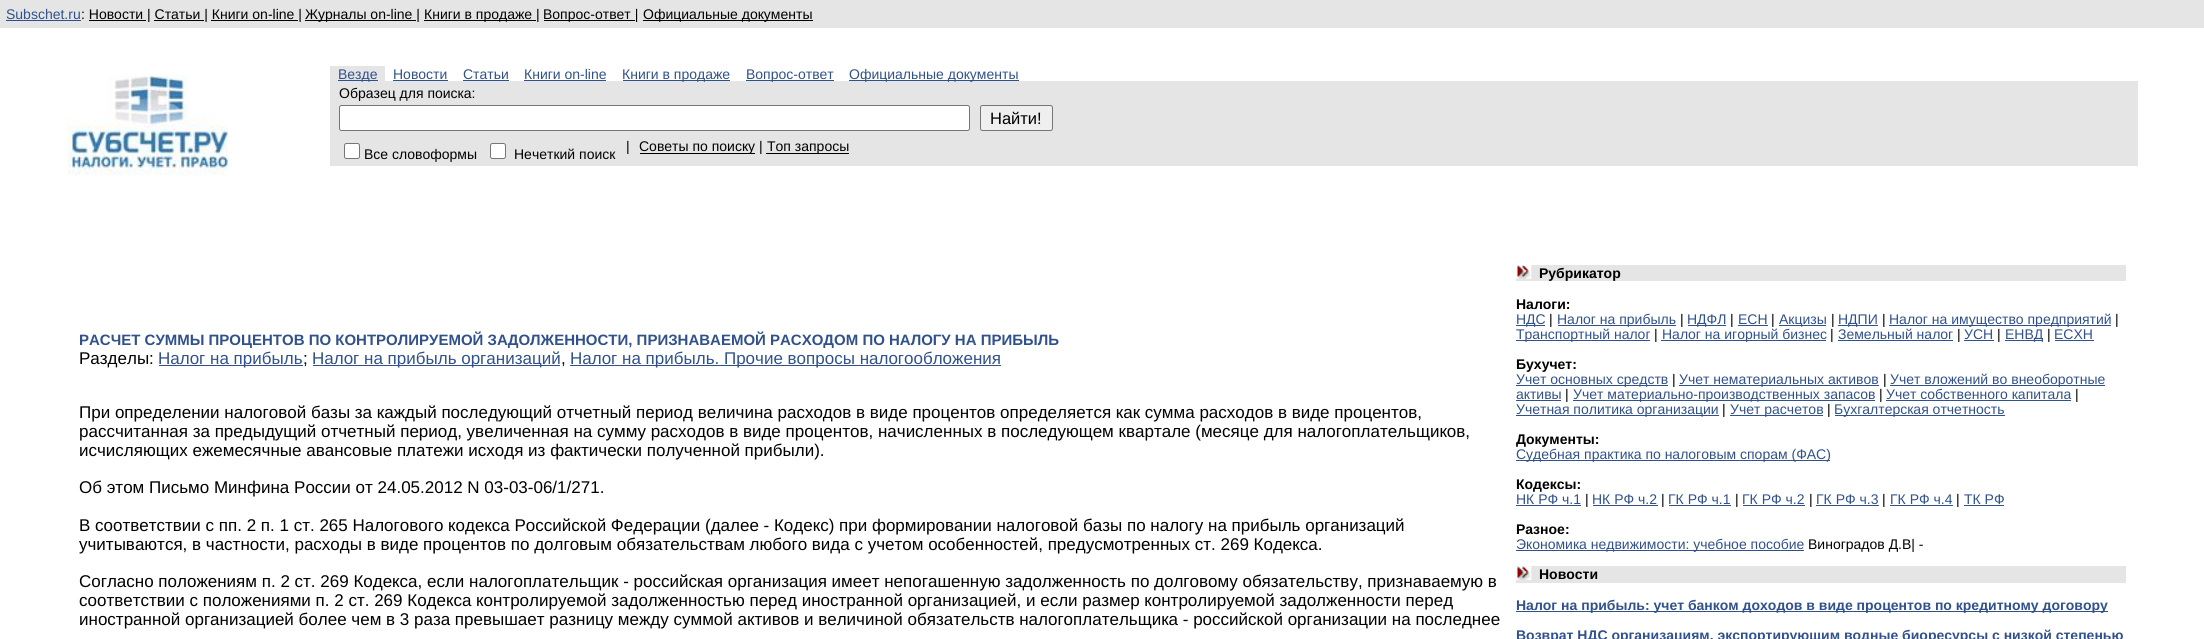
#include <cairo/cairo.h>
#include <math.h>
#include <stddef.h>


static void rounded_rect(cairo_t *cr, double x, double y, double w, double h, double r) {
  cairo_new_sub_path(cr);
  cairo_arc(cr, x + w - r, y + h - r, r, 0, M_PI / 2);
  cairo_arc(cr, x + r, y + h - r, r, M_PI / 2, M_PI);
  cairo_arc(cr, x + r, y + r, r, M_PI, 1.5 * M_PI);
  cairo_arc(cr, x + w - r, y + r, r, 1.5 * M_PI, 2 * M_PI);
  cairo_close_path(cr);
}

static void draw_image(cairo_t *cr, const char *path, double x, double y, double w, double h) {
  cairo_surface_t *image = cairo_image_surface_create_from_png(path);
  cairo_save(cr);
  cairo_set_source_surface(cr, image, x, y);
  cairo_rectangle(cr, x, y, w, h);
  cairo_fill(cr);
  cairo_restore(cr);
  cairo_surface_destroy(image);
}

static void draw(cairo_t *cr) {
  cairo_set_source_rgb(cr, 1, 1, 1);
  cairo_paint(cr);
  cairo_set_source_rgb(cr, 229 / 255.0, 229 / 255.0, 229 / 255.0);
  cairo_rectangle(cr, 0, 0, 2204, 28);
  cairo_fill(cr);
  cairo_set_source_rgb(cr, 49 / 255.0, 81 / 255.0, 140 / 255.0);
  cairo_rectangle(cr, 6, 20, 75, 1);
  cairo_fill(cr);
  cairo_set_source_rgb(cr, 0, 0, 0);
  cairo_rectangle(cr, 305, 20, 111, 1);
  cairo_fill(cr);
  cairo_rectangle(cr, 424, 20, 112, 1);
  cairo_fill(cr);
  cairo_rectangle(cr, 544, 20, 91, 1);
  cairo_fill(cr);
  cairo_rectangle(cr, 643, 20, 170, 1);
  cairo_fill(cr);
  cairo_rectangle(cr, 89, 20, 57, 1);
  cairo_fill(cr);
  cairo_rectangle(cr, 154, 20, 50, 1);
  cairo_fill(cr);
  cairo_rectangle(cr, 211, 20, 87, 1);
  cairo_fill(cr);
  draw_image(cr, "images/1.png", 67, 75, 162, 101);
  cairo_set_source_rgb(cr, 229 / 255.0, 229 / 255.0, 229 / 255.0);
  cairo_rectangle(cr, 330, 66, 8, 15);
  cairo_fill(cr);
  cairo_rectangle(cr, 338, 66, 40, 14);
  cairo_fill(cr);
  cairo_rectangle(cr, 378, 66, 7, 15);
  cairo_fill(cr);
  cairo_set_source_rgb(cr, 49 / 255.0, 81 / 255.0, 140 / 255.0);
  cairo_rectangle(cr, 338, 80, 40, 1);
  cairo_fill(cr);
  cairo_rectangle(cr, 393, 80, 55, 1);
  cairo_fill(cr);
  cairo_rectangle(cr, 463, 80, 46, 1);
  cairo_fill(cr);
  cairo_rectangle(cr, 524, 80, 82, 1);
  cairo_fill(cr);
  cairo_rectangle(cr, 623, 80, 107, 1);
  cairo_fill(cr);
  cairo_rectangle(cr, 746, 80, 88, 1);
  cairo_fill(cr);
  cairo_rectangle(cr, 849, 80, 170, 1);
  cairo_fill(cr);
  cairo_set_source_rgb(cr, 229 / 255.0, 229 / 255.0, 229 / 255.0);
  cairo_rectangle(cr, 330, 81, 1808, 85);
  cairo_fill(cr);
  cairo_set_source_rgb(cr, 1, 1, 1);
  rounded_rect(cr, 339.5, 105.5, 630, 25, 2);
  cairo_fill_preserve(cr);
  cairo_set_source_rgb(cr, 118 / 255.0, 118 / 255.0, 118 / 255.0);
  cairo_set_line_width(cr, 1);
  cairo_stroke(cr);
  cairo_set_source_rgb(cr, 239 / 255.0, 239 / 255.0, 239 / 255.0);
  rounded_rect(cr, 980.5, 105.5, 72, 25, 2);
  cairo_fill_preserve(cr);
  cairo_set_source_rgb(cr, 118 / 255.0, 118 / 255.0, 118 / 255.0);
  cairo_stroke(cr);
  cairo_set_source_rgb(cr, 1, 1, 1);
  rounded_rect(cr, 344.5, 143.5, 15, 15, 2);
  cairo_fill_preserve(cr);
  cairo_set_source_rgb(cr, 118 / 255.0, 118 / 255.0, 118 / 255.0);
  cairo_stroke(cr);
  cairo_set_source_rgb(cr, 1, 1, 1);
  rounded_rect(cr, 490.5, 143.5, 15, 15, 2);
  cairo_fill_preserve(cr);
  cairo_set_source_rgb(cr, 118 / 255.0, 118 / 255.0, 118 / 255.0);
  cairo_stroke(cr);
  cairo_set_source_rgb(cr, 0, 0, 0);
  cairo_rectangle(cr, 640, 153, 115, 1);
  cairo_fill(cr);
  cairo_rectangle(cr, 766, 153, 83, 1);
  cairo_fill(cr);
  cairo_set_source_rgb(cr, 49 / 255.0, 81 / 255.0, 140 / 255.0);
  cairo_rectangle(cr, 159, 365, 144, 1);
  cairo_fill(cr);
  cairo_rectangle(cr, 313, 365, 247, 1);
  cairo_fill(cr);
  cairo_rectangle(cr, 570, 365, 431, 1);
  cairo_fill(cr);
  cairo_set_source_rgb(cr, 229 / 255.0, 229 / 255.0, 229 / 255.0);
  cairo_rectangle(cr, 1516, 265, 610, 16);
  cairo_fill(cr);
  draw_image(cr, "images/2.png", 1516, 265, 16, 14);
  cairo_set_source_rgb(cr, 49 / 255.0, 81 / 255.0, 140 / 255.0);
  cairo_rectangle(cr, 1516, 325, 29, 1);
  cairo_fill(cr);
  cairo_rectangle(cr, 1558, 325, 118, 1);
  cairo_fill(cr);
  cairo_rectangle(cr, 1688, 325, 38, 1);
  cairo_fill(cr);
  cairo_rectangle(cr, 1738, 325, 30, 1);
  cairo_fill(cr);
  cairo_rectangle(cr, 1779, 325, 47, 1);
  cairo_fill(cr);
  cairo_rectangle(cr, 1838, 325, 40, 1);
  cairo_fill(cr);
  cairo_rectangle(cr, 1889, 325, 222, 1);
  cairo_fill(cr);
  cairo_rectangle(cr, 1516, 340, 134, 1);
  cairo_fill(cr);
  cairo_rectangle(cr, 1661, 340, 165, 1);
  cairo_fill(cr);
  cairo_rectangle(cr, 1838, 340, 115, 1);
  cairo_fill(cr);
  cairo_rectangle(cr, 1964, 340, 30, 1);
  cairo_fill(cr);
  cairo_rectangle(cr, 2005, 340, 38, 1);
  cairo_fill(cr);
  cairo_rectangle(cr, 2055, 340, 39, 1);
  cairo_fill(cr);
  cairo_rectangle(cr, 1516, 385, 152, 1);
  cairo_fill(cr);
  cairo_rectangle(cr, 1679, 385, 200, 1);
  cairo_fill(cr);
  cairo_rectangle(cr, 1890, 385, 215, 1);
  cairo_fill(cr);
  cairo_rectangle(cr, 1516, 400, 45, 1);
  cairo_fill(cr);
  cairo_rectangle(cr, 1573, 400, 302, 1);
  cairo_fill(cr);
  cairo_rectangle(cr, 1886, 400, 185, 1);
  cairo_fill(cr);
  cairo_rectangle(cr, 1516, 415, 203, 1);
  cairo_fill(cr);
  cairo_rectangle(cr, 1730, 415, 93, 1);
  cairo_fill(cr);
  cairo_rectangle(cr, 1835, 415, 170, 1);
  cairo_fill(cr);
  cairo_rectangle(cr, 1516, 460, 314, 1);
  cairo_fill(cr);
  cairo_rectangle(cr, 1516, 505, 65, 1);
  cairo_fill(cr);
  cairo_rectangle(cr, 1593, 505, 65, 1);
  cairo_fill(cr);
  cairo_rectangle(cr, 1669, 505, 62, 1);
  cairo_fill(cr);
  cairo_rectangle(cr, 1743, 505, 62, 1);
  cairo_fill(cr);
  cairo_rectangle(cr, 1816, 505, 63, 1);
  cairo_fill(cr);
  cairo_rectangle(cr, 1890, 505, 63, 1);
  cairo_fill(cr);
  cairo_rectangle(cr, 1964, 505, 40, 1);
  cairo_fill(cr);
  cairo_rectangle(cr, 1516, 550, 288, 1);
  cairo_fill(cr);
  cairo_set_source_rgb(cr, 229 / 255.0, 229 / 255.0, 229 / 255.0);
  cairo_rectangle(cr, 1516, 566, 610, 17);
  cairo_fill(cr);
  draw_image(cr, "images/3.png", 1516, 566, 16, 14);
  cairo_set_source_rgb(cr, 49 / 255.0, 81 / 255.0, 140 / 255.0);
  cairo_rectangle(cr, 1516, 611, 592, 1);
  cairo_fill(cr);
  cairo_select_font_face(cr, "Liberation Sans", CAIRO_FONT_SLANT_NORMAL, CAIRO_FONT_WEIGHT_NORMAL);
  cairo_set_font_size(cr, 14);
  cairo_move_to(cr, 6, 19);
  cairo_show_text(cr, "Subschet.ru");
  cairo_set_source_rgb(cr, 0, 0, 0);
  cairo_move_to(cr, 81, 19);
  cairo_show_text(cr, ": Новости | Статьи | Книги on-line |");
  cairo_move_to(cr, 305, 19);
  cairo_show_text(cr, "Журналы on-line |");
  cairo_move_to(cr, 424, 19);
  cairo_show_text(cr, "Книги в продаже |");
  cairo_move_to(cr, 543, 19);
  cairo_show_text(cr, "Вопрос-ответ |");
  cairo_move_to(cr, 643, 19);
  cairo_show_text(cr, "Официальные документы");
  cairo_set_source_rgb(cr, 49 / 255.0, 81 / 255.0, 140 / 255.0);
  cairo_move_to(cr, 338, 79);
  cairo_show_text(cr, "Везде");
  cairo_move_to(cr, 393, 79);
  cairo_show_text(cr, "Новости");
  cairo_move_to(cr, 463, 79);
  cairo_show_text(cr, "Статьи");
  cairo_move_to(cr, 524, 79);
  cairo_show_text(cr, "Книги on-line");
  cairo_move_to(cr, 622, 79);
  cairo_show_text(cr, "Книги в продаже");
  cairo_move_to(cr, 746, 79);
  cairo_show_text(cr, "Вопрос-ответ");
  cairo_move_to(cr, 849, 79);
  cairo_show_text(cr, "Официальные документы");
  cairo_set_source_rgb(cr, 0, 0, 0);
  cairo_move_to(cr, 339, 98);
  cairo_show_text(cr, "Образец для поиска:");
  cairo_set_font_size(cr, 16.5);
  cairo_move_to(cr, 990, 124);
  cairo_show_text(cr, "Найти!");
  cairo_set_font_size(cr, 14);
  cairo_move_to(cr, 364, 159);
  cairo_show_text(cr, "Все словоформы");
  cairo_move_to(cr, 514, 159);
  cairo_show_text(cr, "Нечеткий поиск");
  cairo_move_to(cr, 626, 151);
  cairo_show_text(cr, "|");
  cairo_move_to(cr, 639, 151);
  cairo_show_text(cr, "Советы по поиску |");
  cairo_move_to(cr, 767, 151);
  cairo_show_text(cr, "Топ запросы");
  cairo_select_font_face(cr, "Liberation Sans", CAIRO_FONT_SLANT_NORMAL, CAIRO_FONT_WEIGHT_BOLD);
  cairo_set_font_size(cr, 15);
  cairo_set_source_rgb(cr, 49 / 255.0, 81 / 255.0, 140 / 255.0);
  cairo_move_to(cr, 79, 345);
  cairo_show_text(cr, "РАСЧЕТ СУММЫ ПРОЦЕНТОВ ПО КОНТРОЛИРУЕМОЙ ЗАДОЛЖЕННОСТИ, ПРИЗНАВАЕМОЙ РАСХОДОМ ПО НАЛОГУ НА ПРИБЫЛЬ");
  cairo_select_font_face(cr, "Liberation Sans", CAIRO_FONT_SLANT_NORMAL, CAIRO_FONT_WEIGHT_NORMAL);
  cairo_set_font_size(cr, 17);
  cairo_set_source_rgb(cr, 0, 0, 0);
  cairo_move_to(cr, 79, 364);
  cairo_show_text(cr, "Разделы:");
  cairo_set_source_rgb(cr, 49 / 255.0, 81 / 255.0, 140 / 255.0);
  cairo_move_to(cr, 158, 364);
  cairo_show_text(cr, "Налог на прибыль");
  cairo_set_source_rgb(cr, 0, 0, 0);
  cairo_move_to(cr, 303, 364);
  cairo_show_text(cr, ";");
  cairo_set_source_rgb(cr, 49 / 255.0, 81 / 255.0, 140 / 255.0);
  cairo_move_to(cr, 312, 364);
  cairo_show_text(cr, "Налог на прибыль организаций");
  cairo_set_source_rgb(cr, 0, 0, 0);
  cairo_move_to(cr, 561, 364);
  cairo_show_text(cr, ",");
  cairo_set_source_rgb(cr, 49 / 255.0, 81 / 255.0, 140 / 255.0);
  cairo_move_to(cr, 570, 364);
  cairo_show_text(cr, "Налог на прибыль. Прочие вопросы налогообложения");
  cairo_set_source_rgb(cr, 0, 0, 0);
  cairo_move_to(cr, 79, 418);
  cairo_show_text(cr, "При определении налоговой базы за каждый последующий отчетный период величина расходов в виде процентов определяется как сумма расходов в виде процентов,");
  cairo_move_to(cr, 79, 437);
  cairo_show_text(cr, "рассчитанная за предыдущий отчетный период, увеличенная на сумму расходов в виде процентов, начисленных в последующем квартале (месяце для налогоплательщиков,");
  cairo_move_to(cr, 79, 456);
  cairo_show_text(cr, "исчисляющих ежемесячные авансовые платежи исходя из фактически полученной прибыли).");
  cairo_move_to(cr, 79, 493);
  cairo_show_text(cr, "Об этом Письмо Минфина России от 24.05.2012 N 03-03-06/1/271.");
  cairo_move_to(cr, 79, 531);
  cairo_show_text(cr, "В соответствии с пп. 2 п. 1 ст. 265 Налогового кодекса Российской Федерации (далее - Кодекс) при формировании налоговой базы по налогу на прибыль организаций");
  cairo_move_to(cr, 79, 550);
  cairo_show_text(cr, "учитываются, в частности, расходы в виде процентов по долговым обязательствам любого вида с учетом особенностей, предусмотренных ст. 269 Кодекса.");
  cairo_move_to(cr, 79, 587);
  cairo_show_text(cr, "Согласно положениям п. 2 ст. 269 Кодекса, если налогоплательщик - российская организация имеет непогашенную задолженность по долговому обязательству, признаваемую в");
  cairo_move_to(cr, 79, 606);
  cairo_show_text(cr, "соответствии с положениями п. 2 ст. 269 Кодекса контролируемой задолженностью перед иностранной организацией, и если размер контролируемой задолженности перед");
  cairo_move_to(cr, 79, 625);
  cairo_show_text(cr, "иностранной организацией более чем в 3 раза превышает разницу между суммой активов и величиной обязательств налогоплательщика - российской организации на последнее");
  cairo_select_font_face(cr, "Liberation Sans", CAIRO_FONT_SLANT_NORMAL, CAIRO_FONT_WEIGHT_BOLD);
  cairo_set_font_size(cr, 14);
  cairo_move_to(cr, 1539, 278);
  cairo_show_text(cr, "Рубрикатор");
  cairo_move_to(cr, 1516, 309);
  cairo_show_text(cr, "Налоги:");
  cairo_select_font_face(cr, "Liberation Sans", CAIRO_FONT_SLANT_NORMAL, CAIRO_FONT_WEIGHT_NORMAL);
  cairo_set_source_rgb(cr, 49 / 255.0, 81 / 255.0, 140 / 255.0);
  cairo_move_to(cr, 1516, 324);
  cairo_show_text(cr, "НДС");
  cairo_set_source_rgb(cr, 0, 0, 0);
  cairo_move_to(cr, 1549, 324);
  cairo_show_text(cr, "|");
  cairo_set_source_rgb(cr, 49 / 255.0, 81 / 255.0, 140 / 255.0);
  cairo_move_to(cr, 1557, 324);
  cairo_show_text(cr, "Налог на прибыль");
  cairo_set_source_rgb(cr, 0, 0, 0);
  cairo_move_to(cr, 1680, 324);
  cairo_show_text(cr, "|");
  cairo_set_source_rgb(cr, 49 / 255.0, 81 / 255.0, 140 / 255.0);
  cairo_move_to(cr, 1687, 324);
  cairo_show_text(cr, "НДФЛ");
  cairo_set_source_rgb(cr, 0, 0, 0);
  cairo_move_to(cr, 1730, 324);
  cairo_show_text(cr, "|");
  cairo_set_source_rgb(cr, 49 / 255.0, 81 / 255.0, 140 / 255.0);
  cairo_move_to(cr, 1738, 324);
  cairo_show_text(cr, "ЕСН");
  cairo_set_source_rgb(cr, 0, 0, 0);
  cairo_move_to(cr, 1771, 324);
  cairo_show_text(cr, "|");
  cairo_set_source_rgb(cr, 49 / 255.0, 81 / 255.0, 140 / 255.0);
  cairo_move_to(cr, 1779, 324);
  cairo_show_text(cr, "Акцизы");
  cairo_set_source_rgb(cr, 0, 0, 0);
  cairo_move_to(cr, 1831, 324);
  cairo_show_text(cr, "|");
  cairo_set_source_rgb(cr, 49 / 255.0, 81 / 255.0, 140 / 255.0);
  cairo_move_to(cr, 1838, 324);
  cairo_show_text(cr, "НДПИ");
  cairo_set_source_rgb(cr, 0, 0, 0);
  cairo_move_to(cr, 1882, 324);
  cairo_show_text(cr, "|");
  cairo_set_source_rgb(cr, 49 / 255.0, 81 / 255.0, 140 / 255.0);
  cairo_move_to(cr, 1889, 324);
  cairo_show_text(cr, "Налог на имущество предприятий");
  cairo_set_source_rgb(cr, 0, 0, 0);
  cairo_move_to(cr, 2115, 324);
  cairo_show_text(cr, "|");
  cairo_set_source_rgb(cr, 49 / 255.0, 81 / 255.0, 140 / 255.0);
  cairo_move_to(cr, 1516, 339);
  cairo_show_text(cr, "Транспортный налог");
  cairo_set_source_rgb(cr, 0, 0, 0);
  cairo_move_to(cr, 1654, 339);
  cairo_show_text(cr, "|");
  cairo_set_source_rgb(cr, 49 / 255.0, 81 / 255.0, 140 / 255.0);
  cairo_move_to(cr, 1662, 339);
  cairo_show_text(cr, "Налог на игорный бизнес");
  cairo_set_source_rgb(cr, 0, 0, 0);
  cairo_move_to(cr, 1830, 339);
  cairo_show_text(cr, "|");
  cairo_set_source_rgb(cr, 49 / 255.0, 81 / 255.0, 140 / 255.0);
  cairo_move_to(cr, 1838, 339);
  cairo_show_text(cr, "Земельный налог");
  cairo_set_source_rgb(cr, 0, 0, 0);
  cairo_move_to(cr, 1957, 339);
  cairo_show_text(cr, "|");
  cairo_set_source_rgb(cr, 49 / 255.0, 81 / 255.0, 140 / 255.0);
  cairo_move_to(cr, 1964, 339);
  cairo_show_text(cr, "УСН");
  cairo_set_source_rgb(cr, 0, 0, 0);
  cairo_move_to(cr, 1997, 339);
  cairo_show_text(cr, "|");
  cairo_set_source_rgb(cr, 49 / 255.0, 81 / 255.0, 140 / 255.0);
  cairo_move_to(cr, 2005, 339);
  cairo_show_text(cr, "ЕНВД");
  cairo_set_source_rgb(cr, 0, 0, 0);
  cairo_move_to(cr, 2047, 339);
  cairo_show_text(cr, "|");
  cairo_set_source_rgb(cr, 49 / 255.0, 81 / 255.0, 140 / 255.0);
  cairo_move_to(cr, 2054, 339);
  cairo_show_text(cr, "ЕСХН");
  cairo_select_font_face(cr, "Liberation Sans", CAIRO_FONT_SLANT_NORMAL, CAIRO_FONT_WEIGHT_BOLD);
  cairo_set_source_rgb(cr, 0, 0, 0);
  cairo_move_to(cr, 1516, 369);
  cairo_show_text(cr, "Бухучет:");
  cairo_select_font_face(cr, "Liberation Sans", CAIRO_FONT_SLANT_NORMAL, CAIRO_FONT_WEIGHT_NORMAL);
  cairo_set_source_rgb(cr, 49 / 255.0, 81 / 255.0, 140 / 255.0);
  cairo_move_to(cr, 1516, 384);
  cairo_show_text(cr, "Учет основных средств");
  cairo_set_source_rgb(cr, 0, 0, 0);
  cairo_move_to(cr, 1672, 384);
  cairo_show_text(cr, "|");
  cairo_set_source_rgb(cr, 49 / 255.0, 81 / 255.0, 140 / 255.0);
  cairo_move_to(cr, 1679, 384);
  cairo_show_text(cr, "Учет нематериальных активов");
  cairo_set_source_rgb(cr, 0, 0, 0);
  cairo_move_to(cr, 1883, 384);
  cairo_show_text(cr, "|");
  cairo_set_source_rgb(cr, 49 / 255.0, 81 / 255.0, 140 / 255.0);
  cairo_move_to(cr, 1890, 384);
  cairo_show_text(cr, "Учет вложений во внеоборотные");
  cairo_move_to(cr, 1516, 399);
  cairo_show_text(cr, "активы");
  cairo_set_source_rgb(cr, 0, 0, 0);
  cairo_move_to(cr, 1565, 399);
  cairo_show_text(cr, "|");
  cairo_set_source_rgb(cr, 49 / 255.0, 81 / 255.0, 140 / 255.0);
  cairo_move_to(cr, 1573, 399);
  cairo_show_text(cr, "Учет материально-производственных запасов");
  cairo_set_source_rgb(cr, 0, 0, 0);
  cairo_move_to(cr, 1879, 399);
  cairo_show_text(cr, "|");
  cairo_set_source_rgb(cr, 49 / 255.0, 81 / 255.0, 140 / 255.0);
  cairo_move_to(cr, 1886, 399);
  cairo_show_text(cr, "Учет собственного капитала");
  cairo_set_source_rgb(cr, 0, 0, 0);
  cairo_move_to(cr, 2075, 399);
  cairo_show_text(cr, "|");
  cairo_set_source_rgb(cr, 49 / 255.0, 81 / 255.0, 140 / 255.0);
  cairo_move_to(cr, 1516, 414);
  cairo_show_text(cr, "Учетная политика организации");
  cairo_set_source_rgb(cr, 0, 0, 0);
  cairo_move_to(cr, 1722, 414);
  cairo_show_text(cr, "|");
  cairo_set_source_rgb(cr, 49 / 255.0, 81 / 255.0, 140 / 255.0);
  cairo_move_to(cr, 1730, 414);
  cairo_show_text(cr, "Учет расчетов");
  cairo_set_source_rgb(cr, 0, 0, 0);
  cairo_move_to(cr, 1827, 414);
  cairo_show_text(cr, "|");
  cairo_set_source_rgb(cr, 49 / 255.0, 81 / 255.0, 140 / 255.0);
  cairo_move_to(cr, 1834, 414);
  cairo_show_text(cr, "Бухгалтерская отчетность");
  cairo_select_font_face(cr, "Liberation Sans", CAIRO_FONT_SLANT_NORMAL, CAIRO_FONT_WEIGHT_BOLD);
  cairo_set_source_rgb(cr, 0, 0, 0);
  cairo_move_to(cr, 1516, 444);
  cairo_show_text(cr, "Документы:");
  cairo_select_font_face(cr, "Liberation Sans", CAIRO_FONT_SLANT_NORMAL, CAIRO_FONT_WEIGHT_NORMAL);
  cairo_set_source_rgb(cr, 49 / 255.0, 81 / 255.0, 140 / 255.0);
  cairo_move_to(cr, 1516, 459);
  cairo_show_text(cr, "Судебная практика по налоговым спорам (ФАС)");
  cairo_select_font_face(cr, "Liberation Sans", CAIRO_FONT_SLANT_NORMAL, CAIRO_FONT_WEIGHT_BOLD);
  cairo_set_source_rgb(cr, 0, 0, 0);
  cairo_move_to(cr, 1516, 489);
  cairo_show_text(cr, "Кодексы:");
  cairo_select_font_face(cr, "Liberation Sans", CAIRO_FONT_SLANT_NORMAL, CAIRO_FONT_WEIGHT_NORMAL);
  cairo_set_source_rgb(cr, 49 / 255.0, 81 / 255.0, 140 / 255.0);
  cairo_move_to(cr, 1516, 504);
  cairo_show_text(cr, "НК РФ ч.1");
  cairo_set_source_rgb(cr, 0, 0, 0);
  cairo_move_to(cr, 1585, 504);
  cairo_show_text(cr, "|");
  cairo_set_source_rgb(cr, 49 / 255.0, 81 / 255.0, 140 / 255.0);
  cairo_move_to(cr, 1592, 504);
  cairo_show_text(cr, "НК РФ ч.2");
  cairo_set_source_rgb(cr, 0, 0, 0);
  cairo_move_to(cr, 1661, 504);
  cairo_show_text(cr, "|");
  cairo_set_source_rgb(cr, 49 / 255.0, 81 / 255.0, 140 / 255.0);
  cairo_move_to(cr, 1668, 504);
  cairo_show_text(cr, "ГК РФ ч.1");
  cairo_set_source_rgb(cr, 0, 0, 0);
  cairo_move_to(cr, 1735, 504);
  cairo_show_text(cr, "|");
  cairo_set_source_rgb(cr, 49 / 255.0, 81 / 255.0, 140 / 255.0);
  cairo_move_to(cr, 1742, 504);
  cairo_show_text(cr, "ГК РФ ч.2");
  cairo_set_source_rgb(cr, 0, 0, 0);
  cairo_move_to(cr, 1809, 504);
  cairo_show_text(cr, "|");
  cairo_set_source_rgb(cr, 49 / 255.0, 81 / 255.0, 140 / 255.0);
  cairo_move_to(cr, 1816, 504);
  cairo_show_text(cr, "ГК РФ ч.3");
  cairo_set_source_rgb(cr, 0, 0, 0);
  cairo_move_to(cr, 1882, 504);
  cairo_show_text(cr, "|");
  cairo_set_source_rgb(cr, 49 / 255.0, 81 / 255.0, 140 / 255.0);
  cairo_move_to(cr, 1890, 504);
  cairo_show_text(cr, "ГК РФ ч.4");
  cairo_set_source_rgb(cr, 0, 0, 0);
  cairo_move_to(cr, 1956, 504);
  cairo_show_text(cr, "|");
  cairo_set_source_rgb(cr, 49 / 255.0, 81 / 255.0, 140 / 255.0);
  cairo_move_to(cr, 1964, 504);
  cairo_show_text(cr, "ТК РФ");
  cairo_select_font_face(cr, "Liberation Sans", CAIRO_FONT_SLANT_NORMAL, CAIRO_FONT_WEIGHT_BOLD);
  cairo_set_source_rgb(cr, 0, 0, 0);
  cairo_move_to(cr, 1516, 534);
  cairo_show_text(cr, "Разное:");
  cairo_select_font_face(cr, "Liberation Sans", CAIRO_FONT_SLANT_NORMAL, CAIRO_FONT_WEIGHT_NORMAL);
  cairo_set_source_rgb(cr, 49 / 255.0, 81 / 255.0, 140 / 255.0);
  cairo_move_to(cr, 1516, 549);
  cairo_show_text(cr, "Экономика недвижимости: учебное пособие");
  cairo_set_source_rgb(cr, 0, 0, 0);
  cairo_move_to(cr, 1808, 549);
  cairo_show_text(cr, "Виноградов Д.В| -");
  cairo_select_font_face(cr, "Liberation Sans", CAIRO_FONT_SLANT_NORMAL, CAIRO_FONT_WEIGHT_BOLD);
  cairo_move_to(cr, 1539, 579);
  cairo_show_text(cr, "Новости");
  cairo_set_source_rgb(cr, 49 / 255.0, 81 / 255.0, 140 / 255.0);
  cairo_move_to(cr, 1516, 610);
  cairo_show_text(cr, "Налог на прибыль: учет банком доходов в виде процентов по кредитному договору");
  cairo_move_to(cr, 1516, 640);
  cairo_show_text(cr, "Возврат НДС организациям, экспортирующим водные биоресурсы с низкой степенью");
}

int main(void) {
  cairo_surface_t *surface = cairo_image_surface_create(CAIRO_FORMAT_RGB24, 2204, 639);
  cairo_t *cr = cairo_create(surface);
  cairo_font_options_t *options = cairo_font_options_create();
  cairo_font_options_set_hint_metrics(options, CAIRO_HINT_METRICS_OFF);
  cairo_font_options_set_hint_style(options, CAIRO_HINT_STYLE_NONE);
  cairo_set_font_options(cr, options);
  cairo_set_miter_limit(cr, 4);
  draw(cr);
  cairo_surface_write_to_png(surface, "out.png");
  cairo_font_options_destroy(options);
  cairo_destroy(cr);
  cairo_surface_destroy(surface);
  return 0;
}
